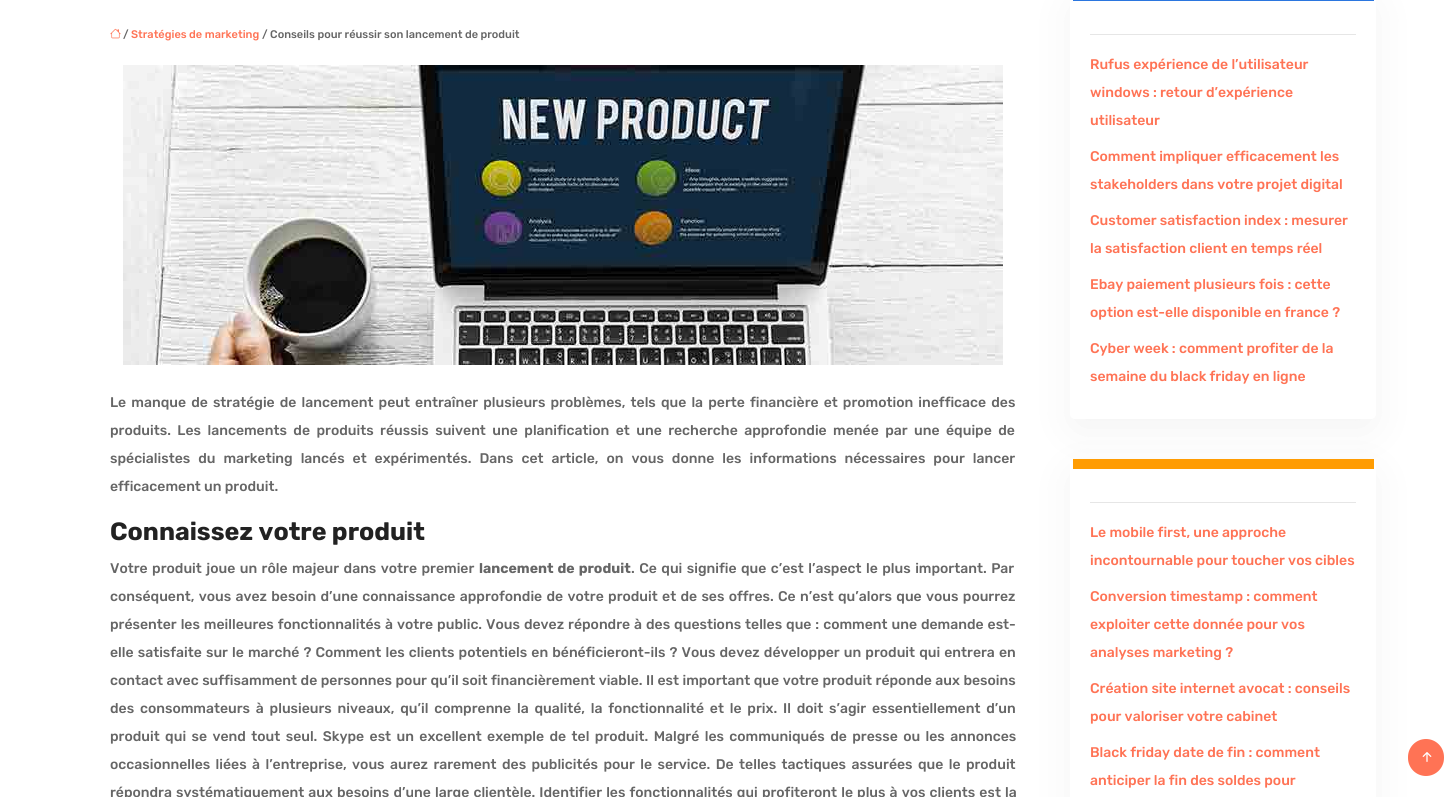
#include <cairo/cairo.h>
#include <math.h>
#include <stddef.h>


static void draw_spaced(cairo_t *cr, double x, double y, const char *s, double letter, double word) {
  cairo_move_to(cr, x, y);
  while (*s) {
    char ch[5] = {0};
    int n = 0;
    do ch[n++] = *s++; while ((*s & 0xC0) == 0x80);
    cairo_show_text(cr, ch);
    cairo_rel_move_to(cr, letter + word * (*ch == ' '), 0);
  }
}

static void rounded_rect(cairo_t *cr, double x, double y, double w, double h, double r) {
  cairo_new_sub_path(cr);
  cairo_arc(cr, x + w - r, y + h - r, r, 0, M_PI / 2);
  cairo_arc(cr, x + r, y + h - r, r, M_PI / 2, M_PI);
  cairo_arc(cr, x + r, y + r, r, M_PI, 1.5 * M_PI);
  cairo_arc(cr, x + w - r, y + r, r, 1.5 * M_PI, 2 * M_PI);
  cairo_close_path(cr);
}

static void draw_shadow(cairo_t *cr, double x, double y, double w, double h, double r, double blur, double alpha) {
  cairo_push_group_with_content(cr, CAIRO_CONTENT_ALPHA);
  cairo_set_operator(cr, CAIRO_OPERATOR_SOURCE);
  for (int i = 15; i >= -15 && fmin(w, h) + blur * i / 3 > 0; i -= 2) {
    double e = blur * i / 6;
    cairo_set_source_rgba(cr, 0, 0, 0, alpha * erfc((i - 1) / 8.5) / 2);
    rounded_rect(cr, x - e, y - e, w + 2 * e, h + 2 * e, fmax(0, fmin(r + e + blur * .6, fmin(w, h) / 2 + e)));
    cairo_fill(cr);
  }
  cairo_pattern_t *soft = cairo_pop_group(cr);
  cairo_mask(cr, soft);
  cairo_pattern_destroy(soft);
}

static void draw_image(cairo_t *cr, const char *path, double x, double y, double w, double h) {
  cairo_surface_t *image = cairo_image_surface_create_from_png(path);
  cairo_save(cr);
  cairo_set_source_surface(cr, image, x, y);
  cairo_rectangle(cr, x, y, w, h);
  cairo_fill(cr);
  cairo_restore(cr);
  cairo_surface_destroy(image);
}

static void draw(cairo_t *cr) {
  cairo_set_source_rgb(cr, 1, 1, 1);
  cairo_paint(cr);
  draw_image(cr, "images/1.png", 110, 28, 11, 11);
  draw_image(cr, "images/2.png", 123, 65, 880, 300);
  cairo_set_source_rgb(cr, 0, 0, 0);
  draw_shadow(cr, 1076, 9, 294, 416, 0, 24.5, 0.06);
  cairo_set_source_rgb(cr, 1, 1, 1);
  rounded_rect(cr, 1070, -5, 306, 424, 5);
  cairo_fill(cr);
  cairo_set_source_rgb(cr, 43 / 255.0, 118 / 255.0, 223 / 255.0);
  cairo_rectangle(cr, 1073, 0, 301, 1);
  cairo_fill(cr);
  cairo_set_source_rgb(cr, 230 / 255.0, 230 / 255.0, 230 / 255.0);
  cairo_rectangle(cr, 1090, 34, 266, 1);
  cairo_fill(cr);
  cairo_set_source_rgb(cr, 0, 0, 0);
  draw_shadow(cr, 1076, 477, 294, 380, 0, 24.5, 0.06);
  cairo_set_source_rgb(cr, 1, 1, 1);
  rounded_rect(cr, 1070, 459, 306, 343, 5);
  cairo_fill(cr);
  cairo_set_source_rgb(cr, 1, 156 / 255.0, 2 / 255.0);
  cairo_rectangle(cr, 1073, 459, 301, 10);
  cairo_fill(cr);
  cairo_set_source_rgb(cr, 230 / 255.0, 230 / 255.0, 230 / 255.0);
  cairo_rectangle(cr, 1090, 502, 266, 1);
  cairo_fill(cr);
  cairo_set_source_rgb(cr, 1, 115 / 255.0, 85 / 255.0);
  rounded_rect(cr, 1408, 739, 36, 37, 18);
  cairo_fill(cr);
  draw_image(cr, "images/3.png", 1422, 752, 10, 10);
  cairo_select_font_face(cr, "Rubik Medium", CAIRO_FONT_SLANT_NORMAL, CAIRO_FONT_WEIGHT_NORMAL);
  cairo_set_font_size(cr, 11);
  cairo_set_source_rgb(cr, 102 / 255.0, 102 / 255.0, 102 / 255.0);
  cairo_move_to(cr, 123, 38);
  cairo_show_text(cr, "/");
  cairo_set_source_rgb(cr, 1, 115 / 255.0, 85 / 255.0);
  cairo_move_to(cr, 131, 38);
  cairo_show_text(cr, "Stratégies de marketing");
  cairo_set_source_rgb(cr, 102 / 255.0, 102 / 255.0, 102 / 255.0);
  cairo_move_to(cr, 262, 38);
  cairo_show_text(cr, "/ Conseils pour réussir son lancement de produit");
  cairo_set_font_size(cr, 14);
  draw_spaced(cr, 110, 407, "Le manque de stratégie de lancement peut entraîner plusieurs problèmes, tels que la perte financière et promotion inefficace des", 0, 1.9);
  draw_spaced(cr, 110, 435, "produits. Les lancements de produits réussis suivent une planification et une recherche approfondie menée par une équipe de", 0, 3.25);
  draw_spaced(cr, 110, 463, "spécialistes du marketing lancés et expérimentés. Dans cet article, on vous donne les informations nécessaires pour lancer", 0, 4.75);
  cairo_move_to(cr, 110, 491);
  cairo_show_text(cr, "efficacement un produit.");
  cairo_select_font_face(cr, "Rubik", CAIRO_FONT_SLANT_NORMAL, CAIRO_FONT_WEIGHT_BOLD);
  cairo_set_font_size(cr, 25);
  cairo_set_source_rgb(cr, 34 / 255.0, 34 / 255.0, 34 / 255.0);
  cairo_move_to(cr, 110, 540);
  cairo_show_text(cr, "Connaissez votre produit");
  cairo_select_font_face(cr, "Rubik Medium", CAIRO_FONT_SLANT_NORMAL, CAIRO_FONT_WEIGHT_NORMAL);
  cairo_set_font_size(cr, 14);
  cairo_set_source_rgb(cr, 102 / 255.0, 102 / 255.0, 102 / 255.0);
  draw_spaced(cr, 110, 573, "Votre produit joue un rôle majeur dans votre premier", 0, 1.25);
  cairo_select_font_face(cr, "Rubik", CAIRO_FONT_SLANT_NORMAL, CAIRO_FONT_WEIGHT_BOLD);
  draw_spaced(cr, 479, 573, "lancement de produit", 0, 1);
  cairo_select_font_face(cr, "Rubik Medium", CAIRO_FONT_SLANT_NORMAL, CAIRO_FONT_WEIGHT_NORMAL);
  draw_spaced(cr, 631, 573, ". Ce qui signifie que c’est l’aspect le plus important. Par", 0, 1.25);
  draw_spaced(cr, 110, 601, "conséquent, vous avez besoin d’une connaissance approfondie de votre produit et de ses offres. Ce n’est qu’alors que vous pourrez", 0, 1.1);
  draw_spaced(cr, 110, 629, "présenter les meilleures fonctionnalités à votre public. Vous devez répondre à des questions telles que : comment une demande est-", 0, 0.75);
  draw_spaced(cr, 110, 657, "elle satisfaite sur le marché ? Comment les clients potentiels en bénéficieront-ils ? Vous devez développer un produit qui entrera en", 0, 0.9);
  draw_spaced(cr, 110, 685, "contact avec suffisamment de personnes pour qu’il soit financièrement viable. Il est important que votre produit réponde aux besoins", 0, 0.3);
  draw_spaced(cr, 110, 713, "des consommateurs à plusieurs niveaux, qu’il comprenne la qualité, la fonctionnalité et le prix. Il doit s’agir essentiellement d’un", 0, 2.6);
  draw_spaced(cr, 110, 741, "produit qui se vend tout seul. Skype est un excellent exemple de tel produit. Malgré les communiqués de presse ou les annonces", 0, 2.2);
  draw_spaced(cr, 110, 769, "occasionnelles liées à l’entreprise, vous aurez rarement des publicités pour le service. De telles tactiques assurées que le produit", 0, 2.2);
  draw_spaced(cr, 110, 797, "répondra systématiquement aux besoins d’une large clientèle. Identifier les fonctionnalités qui profiteront le plus à vos clients est la", 0, 0.9);
  cairo_set_source_rgb(cr, 1, 115 / 255.0, 85 / 255.0);
  cairo_move_to(cr, 1090, 69);
  cairo_show_text(cr, "Rufus expérience de l’utilisateur");
  cairo_move_to(cr, 1090, 97);
  cairo_show_text(cr, "windows : retour d’expérience");
  cairo_move_to(cr, 1090, 125);
  cairo_show_text(cr, "utilisateur");
  cairo_move_to(cr, 1090, 161);
  cairo_show_text(cr, "Comment impliquer efficacement les");
  cairo_move_to(cr, 1090, 189);
  cairo_show_text(cr, "stakeholders dans votre projet digital");
  cairo_move_to(cr, 1090, 225);
  cairo_show_text(cr, "Customer satisfaction index : mesurer");
  cairo_move_to(cr, 1090, 253);
  cairo_show_text(cr, "la satisfaction client en temps réel");
  cairo_move_to(cr, 1090, 289);
  cairo_show_text(cr, "Ebay paiement plusieurs fois : cette");
  cairo_move_to(cr, 1090, 317);
  cairo_show_text(cr, "option est-elle disponible en france ?");
  cairo_move_to(cr, 1090, 353);
  cairo_show_text(cr, "Cyber week : comment profiter de la");
  cairo_move_to(cr, 1090, 381);
  cairo_show_text(cr, "semaine du black friday en ligne");
  cairo_move_to(cr, 1090, 537);
  cairo_show_text(cr, "Le mobile first, une approche");
  cairo_move_to(cr, 1090, 565);
  cairo_show_text(cr, "incontournable pour toucher vos cibles");
  cairo_move_to(cr, 1090, 601);
  cairo_show_text(cr, "Conversion timestamp : comment");
  cairo_move_to(cr, 1090, 629);
  cairo_show_text(cr, "exploiter cette donnée pour vos");
  cairo_move_to(cr, 1090, 657);
  cairo_show_text(cr, "analyses marketing ?");
  cairo_move_to(cr, 1090, 693);
  cairo_show_text(cr, "Création site internet avocat : conseils");
  cairo_move_to(cr, 1090, 721);
  cairo_show_text(cr, "pour valoriser votre cabinet");
  cairo_move_to(cr, 1090, 757);
  cairo_show_text(cr, "Black friday date de fin : comment");
  cairo_move_to(cr, 1090, 785);
  cairo_show_text(cr, "anticiper la fin des soldes pour");
}

int main(void) {
  cairo_surface_t *surface = cairo_image_surface_create(CAIRO_FORMAT_RGB24, 1455, 797);
  cairo_t *cr = cairo_create(surface);
  cairo_font_options_t *options = cairo_font_options_create();
  cairo_font_options_set_hint_metrics(options, CAIRO_HINT_METRICS_OFF);
  cairo_font_options_set_hint_style(options, CAIRO_HINT_STYLE_NONE);
  cairo_set_font_options(cr, options);
  cairo_set_miter_limit(cr, 4);
  draw(cr);
  cairo_surface_write_to_png(surface, "out.png");
  cairo_font_options_destroy(options);
  cairo_destroy(cr);
  cairo_surface_destroy(surface);
  return 0;
}
